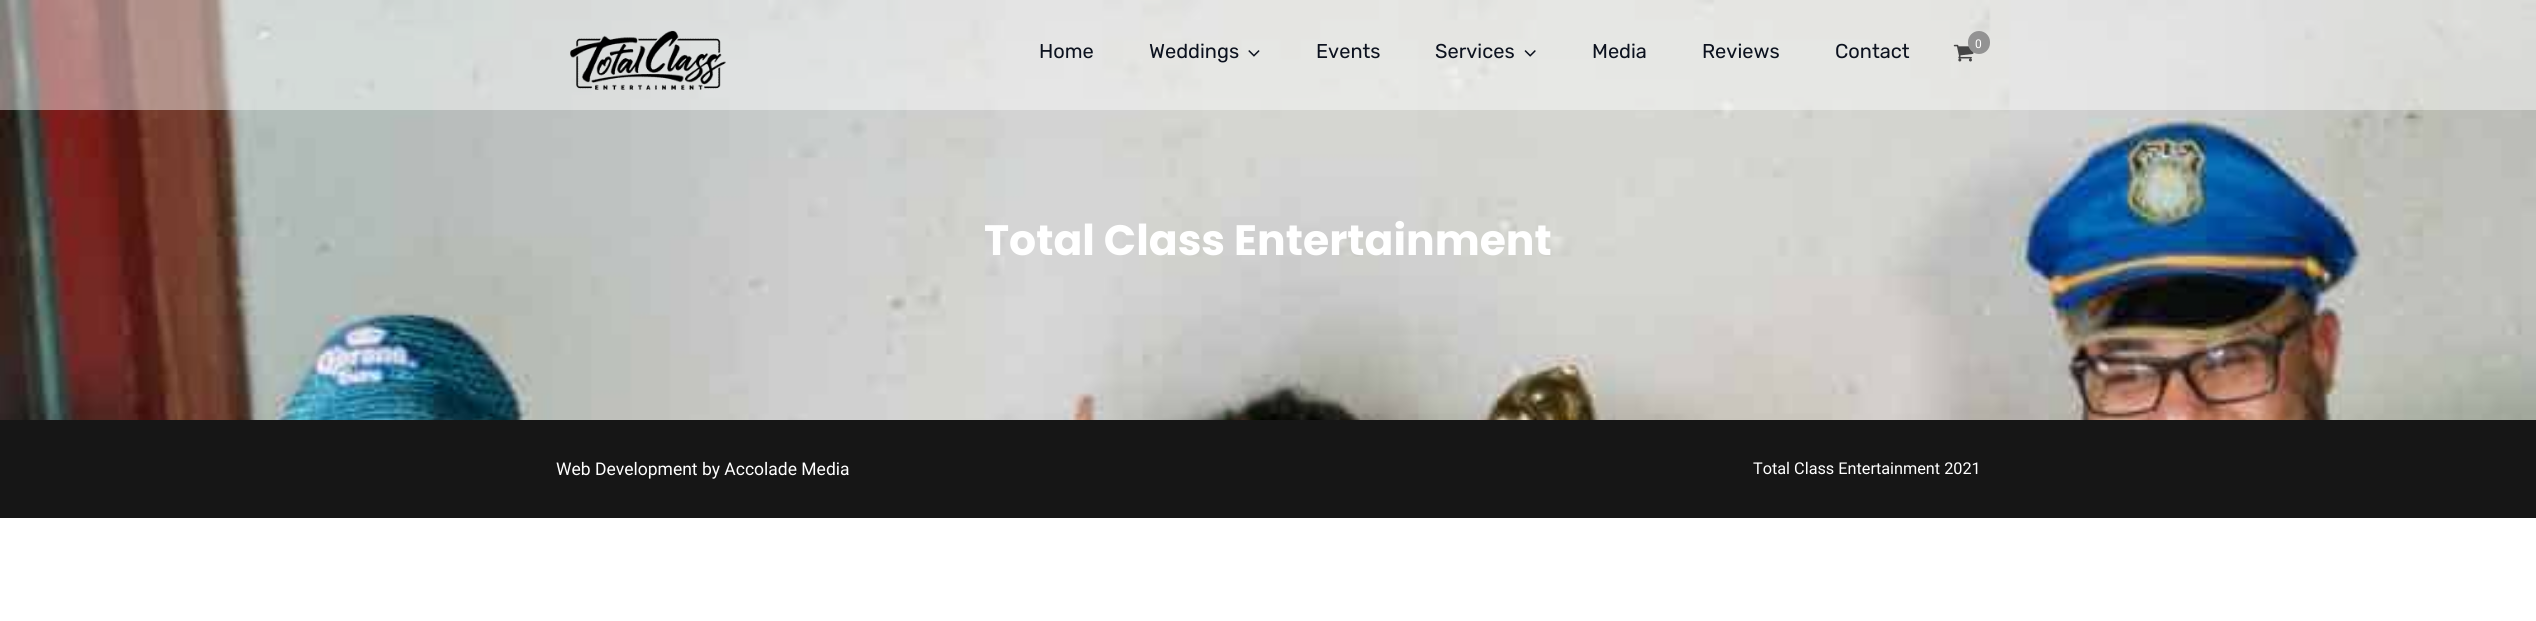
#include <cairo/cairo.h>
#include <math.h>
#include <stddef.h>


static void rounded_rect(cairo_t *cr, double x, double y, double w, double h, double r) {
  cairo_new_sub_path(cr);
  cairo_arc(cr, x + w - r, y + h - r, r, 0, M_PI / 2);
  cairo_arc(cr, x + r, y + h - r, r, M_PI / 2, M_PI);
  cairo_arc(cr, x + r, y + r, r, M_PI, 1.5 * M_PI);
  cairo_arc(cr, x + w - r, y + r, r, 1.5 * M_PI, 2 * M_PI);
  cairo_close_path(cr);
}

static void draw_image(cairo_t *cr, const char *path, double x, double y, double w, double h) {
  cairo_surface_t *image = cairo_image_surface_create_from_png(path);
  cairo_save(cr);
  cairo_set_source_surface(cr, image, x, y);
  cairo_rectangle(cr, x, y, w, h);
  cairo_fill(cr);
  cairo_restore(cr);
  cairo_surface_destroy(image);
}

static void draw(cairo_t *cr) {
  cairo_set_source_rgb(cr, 1, 1, 1);
  cairo_paint(cr);
  draw_image(cr, "images/5.png", 0, 0, 2536, 420);
  cairo_set_source_rgba(cr, 1, 1, 1, 0.44);
  cairo_rectangle(cr, 0, 0, 2536, 110);
  cairo_fill(cr);
  draw_image(cr, "images/1.png", 570, 30, 156, 60);
  draw_image(cr, "images/2.png", 1248, 50, 12, 7);
  draw_image(cr, "images/3.png", 1524, 50, 12, 7);
  draw_image(cr, "images/4.png", 1953, 44, 21, 18);
  cairo_set_source_rgb(cr, 147 / 255.0, 147 / 255.0, 147 / 255.0);
  rounded_rect(cr, 1968, 31, 22, 23, 11);
  cairo_fill(cr);
  cairo_set_source_rgb(cr, 22 / 255.0, 22 / 255.0, 22 / 255.0);
  cairo_rectangle(cr, 0, 420, 2536, 98);
  cairo_fill(cr);
  cairo_select_font_face(cr, "Rubik", CAIRO_FONT_SLANT_NORMAL, CAIRO_FONT_WEIGHT_NORMAL);
  cairo_set_font_size(cr, 20);
  cairo_set_source_rgb(cr, 12 / 255.0, 18 / 255.0, 31 / 255.0);
  cairo_move_to(cr, 1039, 58);
  cairo_show_text(cr, "Home");
  cairo_move_to(cr, 1149, 58);
  cairo_show_text(cr, "Weddings");
  cairo_move_to(cr, 1316, 58);
  cairo_show_text(cr, "Events");
  cairo_move_to(cr, 1435, 58);
  cairo_show_text(cr, "Services");
  cairo_move_to(cr, 1592, 58);
  cairo_show_text(cr, "Media");
  cairo_move_to(cr, 1702, 58);
  cairo_show_text(cr, "Reviews");
  cairo_move_to(cr, 1835, 58);
  cairo_show_text(cr, "Contact");
  cairo_select_font_face(cr, "Roboto", CAIRO_FONT_SLANT_NORMAL, CAIRO_FONT_WEIGHT_NORMAL);
  cairo_set_font_size(cr, 12);
  cairo_set_source_rgb(cr, 1, 1, 1);
  cairo_move_to(cr, 1975, 48);
  cairo_show_text(cr, "0");
  cairo_select_font_face(cr, "Poppins", CAIRO_FONT_SLANT_NORMAL, CAIRO_FONT_WEIGHT_BOLD);
  cairo_set_font_size(cr, 42.5);
  cairo_move_to(cr, 984, 255);
  cairo_show_text(cr, "Total Class Entertainment");
  cairo_select_font_face(cr, "Roboto", CAIRO_FONT_SLANT_NORMAL, CAIRO_FONT_WEIGHT_NORMAL);
  cairo_set_font_size(cr, 17.5);
  cairo_move_to(cr, 556, 475);
  cairo_show_text(cr, "Web Development by Accolade Media");
  cairo_set_font_size(cr, 16.25);
  cairo_move_to(cr, 1753, 474);
  cairo_show_text(cr, "Total Class Entertainment 2021");
}

int main(void) {
  cairo_surface_t *surface = cairo_image_surface_create(CAIRO_FORMAT_RGB24, 2536, 621);
  cairo_t *cr = cairo_create(surface);
  cairo_font_options_t *options = cairo_font_options_create();
  cairo_font_options_set_hint_metrics(options, CAIRO_HINT_METRICS_OFF);
  cairo_font_options_set_hint_style(options, CAIRO_HINT_STYLE_NONE);
  cairo_set_font_options(cr, options);
  cairo_set_miter_limit(cr, 4);
  draw(cr);
  cairo_surface_write_to_png(surface, "out.png");
  cairo_font_options_destroy(options);
  cairo_destroy(cr);
  cairo_surface_destroy(surface);
  return 0;
}
